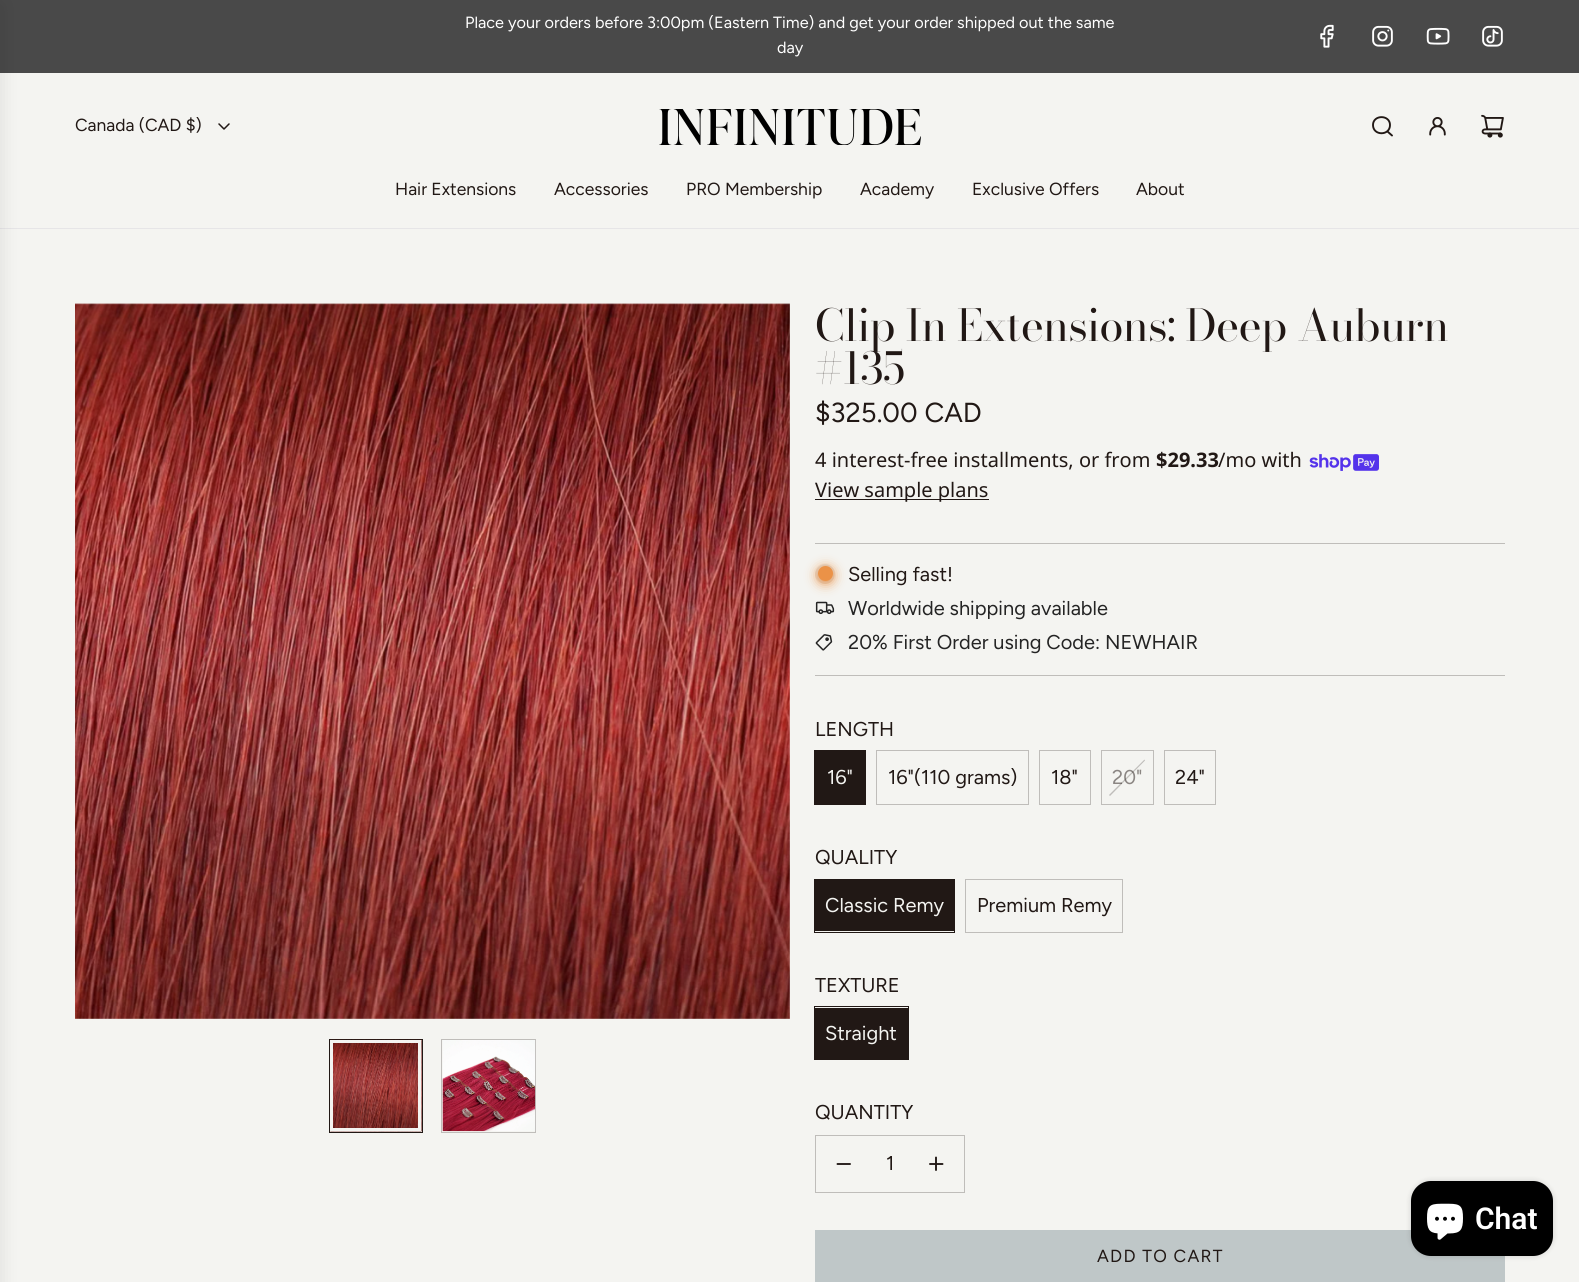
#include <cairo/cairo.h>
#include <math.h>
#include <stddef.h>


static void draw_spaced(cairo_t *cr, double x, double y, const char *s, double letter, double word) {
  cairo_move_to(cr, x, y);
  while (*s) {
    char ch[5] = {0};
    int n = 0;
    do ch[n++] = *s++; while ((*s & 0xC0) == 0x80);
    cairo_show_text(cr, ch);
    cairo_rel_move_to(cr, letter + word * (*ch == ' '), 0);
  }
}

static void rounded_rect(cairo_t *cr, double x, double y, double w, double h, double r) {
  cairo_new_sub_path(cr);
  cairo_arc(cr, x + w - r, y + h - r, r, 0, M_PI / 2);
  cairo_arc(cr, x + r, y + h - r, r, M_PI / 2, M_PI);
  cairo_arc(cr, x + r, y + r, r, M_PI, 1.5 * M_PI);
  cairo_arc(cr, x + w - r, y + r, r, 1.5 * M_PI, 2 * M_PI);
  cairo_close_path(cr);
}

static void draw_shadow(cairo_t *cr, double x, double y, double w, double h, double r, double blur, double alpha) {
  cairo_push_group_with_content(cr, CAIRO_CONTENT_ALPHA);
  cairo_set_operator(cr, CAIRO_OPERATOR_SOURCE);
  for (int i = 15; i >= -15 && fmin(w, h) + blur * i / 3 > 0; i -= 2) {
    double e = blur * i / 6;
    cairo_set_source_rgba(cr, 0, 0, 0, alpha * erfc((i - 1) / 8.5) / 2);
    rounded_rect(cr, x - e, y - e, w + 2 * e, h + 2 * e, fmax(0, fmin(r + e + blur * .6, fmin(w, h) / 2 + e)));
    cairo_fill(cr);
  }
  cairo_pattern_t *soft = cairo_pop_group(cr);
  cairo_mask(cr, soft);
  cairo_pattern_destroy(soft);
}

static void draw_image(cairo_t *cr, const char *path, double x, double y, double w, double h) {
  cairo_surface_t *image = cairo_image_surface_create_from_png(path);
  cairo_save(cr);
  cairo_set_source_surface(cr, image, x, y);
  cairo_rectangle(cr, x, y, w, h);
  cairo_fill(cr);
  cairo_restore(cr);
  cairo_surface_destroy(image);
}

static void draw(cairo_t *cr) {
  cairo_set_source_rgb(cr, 244 / 255.0, 244 / 255.0, 241 / 255.0);
  cairo_paint(cr);
  cairo_set_source_rgb(cr, 73 / 255.0, 73 / 255.0, 73 / 255.0);
  cairo_rectangle(cr, 0, 0, 1579, 73);
  cairo_fill(cr);
  draw_image(cr, "images/1.png", 1320, 24, 14, 24);
  draw_image(cr, "images/2.png", 1372, 25, 21, 22);
  draw_image(cr, "images/3.png", 1426, 27, 24, 18);
  draw_image(cr, "images/4.png", 1482, 25, 21, 22);
  cairo_set_source_rgb(cr, 230 / 255.0, 229 / 255.0, 231 / 255.0);
  cairo_rectangle(cr, 0, 228, 1579, 1);
  cairo_fill(cr);
  cairo_set_source_rgb(cr, 0, 0, 0);
  draw_shadow(cr, -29, 6, 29, 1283, 0, 9.5, 0.1);
  cairo_new_path(cr);
  cairo_move_to(cr, 219, 124);
  cairo_line_to(cr, 224, 129);
  cairo_line_to(cr, 229, 124);
  cairo_set_source_rgb(cr, 33 / 255.0, 24 / 255.0, 21 / 255.0);
  cairo_set_line_width(cr, 1.5);
  cairo_set_line_cap(cr, CAIRO_LINE_CAP_ROUND);
  cairo_set_line_join(cr, CAIRO_LINE_JOIN_ROUND);
  cairo_stroke(cr);
  draw_image(cr, "images/5.png", 659, 109, 262, 36);
  cairo_new_path(cr);
  cairo_move_to(cr, 1387.5, 131.5);
  cairo_line_to(cr, 1392, 135.5);
  cairo_move_to(cr, 1373, 125);
  cairo_curve_to(cr, 1373, 136, 1390, 136, 1390, 125);
  cairo_curve_to(cr, 1390, 114.5, 1373, 114.5, 1373, 125);
  cairo_close_path(cr);
  cairo_set_line_width(cr, 1.9);
  cairo_stroke(cr);
  draw_image(cr, "images/6.png", 1429, 117, 17, 19);
  draw_image(cr, "images/7.png", 1481, 114, 23, 24);
  draw_image(cr, "images/8.png", 75, 303, 715, 716);
  cairo_rectangle(cr, 329.5, 1039.5, 93, 93);
  cairo_set_line_width(cr, 1);
  cairo_set_line_cap(cr, CAIRO_LINE_CAP_BUTT);
  cairo_set_line_join(cr, CAIRO_LINE_JOIN_MITER);
  cairo_stroke(cr);
  draw_image(cr, "images/9.png", 330, 1039, 92, 93);
  cairo_rectangle(cr, 331.5, 1041.5, 88, 88);
  cairo_set_source_rgb(cr, 244 / 255.0, 244 / 255.0, 241 / 255.0);
  cairo_set_line_width(cr, 3);
  cairo_stroke(cr);
  cairo_rectangle(cr, 441.5, 1039.5, 94, 93);
  cairo_set_source_rgb(cr, 191 / 255.0, 189 / 255.0, 186 / 255.0);
  cairo_set_line_width(cr, 1);
  cairo_stroke(cr);
  draw_image(cr, "images/10.png", 442, 1040, 94, 92);
  draw_image(cr, "images/11.png", 1309, 454, 70, 17);
  cairo_set_source_rgb(cr, 33 / 255.0, 24 / 255.0, 21 / 255.0);
  cairo_rectangle(cr, 815, 499, 174, 1);
  cairo_fill(cr);
  cairo_set_source_rgb(cr, 191 / 255.0, 189 / 255.0, 186 / 255.0);
  cairo_rectangle(cr, 815, 543, 690, 1);
  cairo_fill(cr);
  cairo_set_source_rgb(cr, 223 / 255.0, 222 / 255.0, 219 / 255.0);
  cairo_arc(cr, 825, 574, 10, 0, 2 * M_PI);
  cairo_fill(cr);
  draw_image(cr, "images/12.png", 815, 601, 20, 14);
  cairo_set_source_rgb(cr, 235 / 255.0, 146 / 255.0, 71 / 255.0);
  draw_shadow(cr, 818, 568, 15, 15, 7.5, 6, 1);
  cairo_set_source_rgb(cr, 235 / 255.0, 146 / 255.0, 71 / 255.0);
  cairo_arc(cr, 825.5, 573.5, 7.5, 0, 2 * M_PI);
  cairo_fill(cr);
  draw_image(cr, "images/13.png", 815, 634, 18, 17);
  cairo_set_source_rgb(cr, 191 / 255.0, 189 / 255.0, 186 / 255.0);
  cairo_rectangle(cr, 815, 675, 690, 1);
  cairo_fill(cr);
  cairo_set_source_rgb(cr, 33 / 255.0, 24 / 255.0, 21 / 255.0);
  cairo_rectangle(cr, 815, 751, 50, 53);
  cairo_fill(cr);
  cairo_rectangle(cr, 814.5, 750.5, 51, 54);
  cairo_stroke(cr);
  cairo_rectangle(cr, 876.5, 750.5, 152, 54);
  cairo_set_source_rgb(cr, 191 / 255.0, 189 / 255.0, 186 / 255.0);
  cairo_stroke(cr);
  cairo_rectangle(cr, 1039.5, 750.5, 51, 54);
  cairo_stroke(cr);
  cairo_rectangle(cr, 1101.5, 750.5, 52, 54);
  cairo_stroke(cr);
  cairo_rectangle(cr, 1164.5, 750.5, 51, 54);
  cairo_stroke(cr);
  cairo_set_source_rgb(cr, 33 / 255.0, 24 / 255.0, 21 / 255.0);
  cairo_rectangle(cr, 815, 880, 139, 51);
  cairo_fill(cr);
  cairo_rectangle(cr, 814.5, 879.5, 140, 53);
  cairo_stroke(cr);
  cairo_rectangle(cr, 965.5, 879.5, 157, 53);
  cairo_set_source_rgb(cr, 191 / 255.0, 189 / 255.0, 186 / 255.0);
  cairo_stroke(cr);
  cairo_set_source_rgb(cr, 33 / 255.0, 24 / 255.0, 21 / 255.0);
  cairo_rectangle(cr, 815, 1008, 93, 51);
  cairo_fill(cr);
  cairo_rectangle(cr, 814.5, 1006.5, 94, 53);
  cairo_stroke(cr);
  cairo_rectangle(cr, 815.5, 1135.5, 149, 57);
  cairo_set_source_rgb(cr, 191 / 255.0, 189 / 255.0, 186 / 255.0);
  cairo_stroke(cr);
  cairo_new_path(cr);
  cairo_move_to(cr, 837.5, 1164);
  cairo_line_to(cr, 850, 1164);
  cairo_set_source_rgb(cr, 33 / 255.0, 24 / 255.0, 21 / 255.0);
  cairo_set_line_width(cr, 1.9);
  cairo_set_line_cap(cr, CAIRO_LINE_CAP_ROUND);
  cairo_set_line_join(cr, CAIRO_LINE_JOIN_ROUND);
  cairo_stroke(cr);
  cairo_new_path(cr);
  cairo_move_to(cr, 930, 1164);
  cairo_line_to(cr, 936, 1164);
  cairo_move_to(cr, 936, 1164);
  cairo_line_to(cr, 942.5, 1164);
  cairo_move_to(cr, 936, 1164);
  cairo_line_to(cr, 936, 1157.5);
  cairo_move_to(cr, 936, 1164);
  cairo_line_to(cr, 936, 1170);
  cairo_stroke(cr);
  cairo_set_source_rgb(cr, 191 / 255.0, 199 / 255.0, 200 / 255.0);
  cairo_rectangle(cr, 815, 1230, 690, 52);
  cairo_fill(cr);
  cairo_set_source_rgb(cr, 0, 0, 0);
  draw_shadow(cr, 1411, 1181, 142, 75, 20, 3, 0.15);
  cairo_set_source_rgb(cr, 0, 0, 0);
  rounded_rect(cr, 1411, 1181, 142, 75, 20);
  cairo_fill(cr);
  draw_image(cr, "images/14.png", 1427, 1203, 36, 37);
  cairo_select_font_face(cr, "Figtree", CAIRO_FONT_SLANT_NORMAL, CAIRO_FONT_WEIGHT_NORMAL);
  cairo_set_font_size(cr, 16.25);
  cairo_set_source_rgb(cr, 1, 1, 1);
  cairo_move_to(cr, 465, 28);
  cairo_show_text(cr, "Place your orders before 3:00pm (Eastern Time) and get your order shipped out the same");
  cairo_move_to(cr, 777, 53);
  cairo_show_text(cr, "day");
  cairo_set_font_size(cr, 17.5);
  cairo_set_source_rgb(cr, 33 / 255.0, 24 / 255.0, 21 / 255.0);
  cairo_move_to(cr, 75, 131);
  cairo_show_text(cr, "Canada (CAD $)");
  cairo_move_to(cr, 395, 195);
  cairo_show_text(cr, "Hair Extensions");
  cairo_move_to(cr, 554, 195);
  cairo_show_text(cr, "Accessories");
  cairo_move_to(cr, 686, 195);
  cairo_show_text(cr, "PRO Membership");
  cairo_move_to(cr, 860, 195);
  cairo_show_text(cr, "Academy");
  cairo_move_to(cr, 972, 195);
  cairo_show_text(cr, "Exclusive Offers");
  cairo_move_to(cr, 1136, 195);
  cairo_show_text(cr, "About");
  cairo_select_font_face(cr, "Bodoni Moda", CAIRO_FONT_SLANT_NORMAL, CAIRO_FONT_WEIGHT_NORMAL);
  cairo_set_font_size(cr, 43.75);
  draw_spaced(cr, 815, 341, "Clip In Extensions: Deep Auburn", -0.45, 0);
  draw_spaced(cr, 815, 384, "#135", -0.45, 0);
  cairo_select_font_face(cr, "Figtree", CAIRO_FONT_SLANT_NORMAL, CAIRO_FONT_WEIGHT_NORMAL);
  cairo_set_font_size(cr, 27.5);
  cairo_move_to(cr, 815, 422);
  cairo_show_text(cr, "$325.00 CAD");
  cairo_select_font_face(cr, "Noto Sans", CAIRO_FONT_SLANT_NORMAL, CAIRO_FONT_WEIGHT_NORMAL);
  cairo_set_font_size(cr, 20);
  cairo_move_to(cr, 815, 467);
  cairo_show_text(cr, "4 interest-free installments, or from");
  cairo_select_font_face(cr, "Noto Sans", CAIRO_FONT_SLANT_NORMAL, CAIRO_FONT_WEIGHT_BOLD);
  cairo_move_to(cr, 1156, 467);
  cairo_show_text(cr, "$29.33");
  cairo_select_font_face(cr, "Noto Sans", CAIRO_FONT_SLANT_NORMAL, CAIRO_FONT_WEIGHT_NORMAL);
  cairo_move_to(cr, 1218, 467);
  cairo_show_text(cr, "/mo with");
  cairo_move_to(cr, 815, 497);
  cairo_show_text(cr, "View sample plans");
  cairo_select_font_face(cr, "Figtree", CAIRO_FONT_SLANT_NORMAL, CAIRO_FONT_WEIGHT_NORMAL);
  cairo_move_to(cr, 848, 581);
  cairo_show_text(cr, "Selling fast!");
  cairo_set_source_rgb(cr, 36 / 255.0, 36 / 255.0, 36 / 255.0);
  cairo_move_to(cr, 848, 615);
  cairo_show_text(cr, "Worldwide shipping available");
  cairo_move_to(cr, 848, 649);
  cairo_show_text(cr, "20% First Order using Code: NEWHAIR");
  cairo_set_source_rgb(cr, 33 / 255.0, 24 / 255.0, 21 / 255.0);
  cairo_move_to(cr, 815, 736);
  cairo_show_text(cr, "LENGTH");
  cairo_set_source_rgb(cr, 244 / 255.0, 244 / 255.0, 241 / 255.0);
  cairo_move_to(cr, 827, 784);
  cairo_show_text(cr, "16\"");
  cairo_set_source_rgb(cr, 33 / 255.0, 24 / 255.0, 21 / 255.0);
  cairo_move_to(cr, 888, 784);
  cairo_show_text(cr, "16\"(110 grams)");
  cairo_move_to(cr, 1051, 784);
  cairo_show_text(cr, "18\"");
  cairo_set_source_rgb(cr, 139 / 255.0, 134 / 255.0, 131 / 255.0);
  cairo_move_to(cr, 1112, 784);
  cairo_show_text(cr, "20\"");
  cairo_set_source_rgba(cr, 33 / 255.0, 24 / 255.0, 21 / 255.0, 0.25);
  cairo_new_path(cr);
  cairo_move_to(cr, 1109, 795);
  cairo_line_to(cr, 1144.5, 759.5);
  cairo_line_to(cr, 1145, 760.5);
  cairo_line_to(cr, 1110, 796);
  cairo_close_path(cr);
  cairo_fill(cr);
  cairo_set_source_rgb(cr, 33 / 255.0, 24 / 255.0, 21 / 255.0);
  cairo_move_to(cr, 1175, 784);
  cairo_show_text(cr, "24\"");
  cairo_move_to(cr, 815, 864);
  cairo_show_text(cr, "QUALITY");
  cairo_set_source_rgb(cr, 244 / 255.0, 244 / 255.0, 241 / 255.0);
  cairo_move_to(cr, 825, 912);
  cairo_show_text(cr, "Classic Remy");
  cairo_set_source_rgb(cr, 33 / 255.0, 24 / 255.0, 21 / 255.0);
  cairo_move_to(cr, 977, 912);
  cairo_show_text(cr, "Premium Remy");
  cairo_move_to(cr, 815, 992);
  cairo_show_text(cr, "TEXTURE");
  cairo_set_source_rgb(cr, 244 / 255.0, 244 / 255.0, 241 / 255.0);
  cairo_move_to(cr, 825, 1040);
  cairo_show_text(cr, "Straight");
  cairo_set_source_rgb(cr, 33 / 255.0, 24 / 255.0, 21 / 255.0);
  cairo_move_to(cr, 815, 1119);
  cairo_show_text(cr, "QUANTITY");
  cairo_move_to(cr, 886, 1170);
  cairo_show_text(cr, "1");
  cairo_set_font_size(cr, 17.5);
  draw_spaced(cr, 1097, 1262, "ADD TO CART", 1.25, 0);
  cairo_select_font_face(cr, "Roboto SemiBold", CAIRO_FONT_SLANT_NORMAL, CAIRO_FONT_WEIGHT_NORMAL);
  cairo_set_font_size(cr, 30);
  cairo_set_source_rgb(cr, 1, 1, 1);
  cairo_move_to(cr, 1475, 1229);
  cairo_show_text(cr, "Chat");
}

int main(void) {
  cairo_surface_t *surface = cairo_image_surface_create(CAIRO_FORMAT_RGB24, 1579, 1282);
  cairo_t *cr = cairo_create(surface);
  cairo_font_options_t *options = cairo_font_options_create();
  cairo_font_options_set_hint_metrics(options, CAIRO_HINT_METRICS_OFF);
  cairo_font_options_set_hint_style(options, CAIRO_HINT_STYLE_NONE);
  cairo_set_font_options(cr, options);
  cairo_set_miter_limit(cr, 4);
  draw(cr);
  cairo_surface_write_to_png(surface, "out.png");
  cairo_font_options_destroy(options);
  cairo_destroy(cr);
  cairo_surface_destroy(surface);
  return 0;
}
